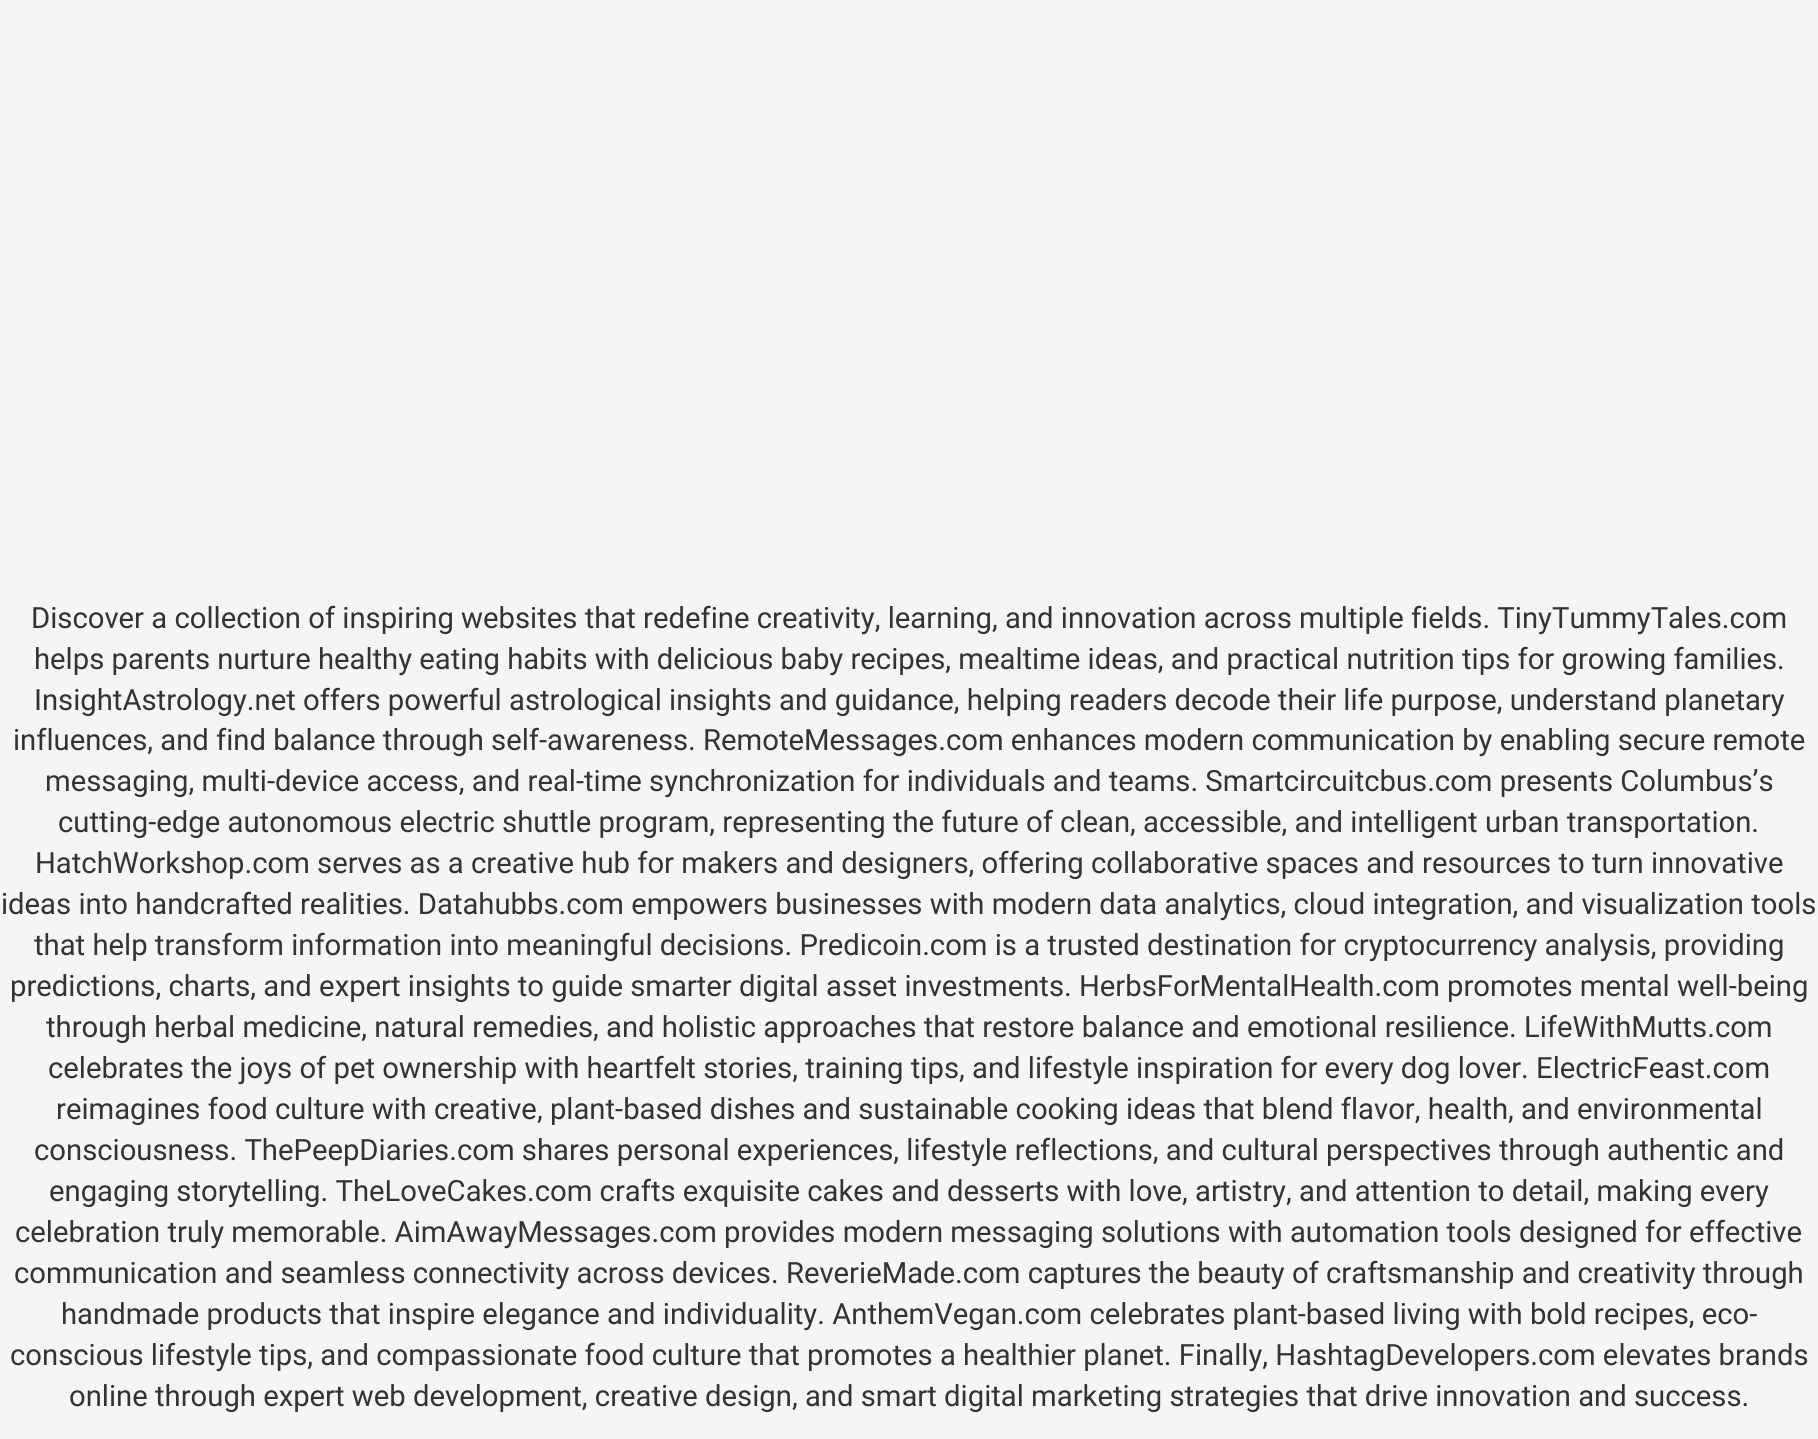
#include <cairo/cairo.h>
#include <math.h>
#include <stddef.h>


static void draw(cairo_t *cr) {
  cairo_set_source_rgb(cr, 245 / 255.0, 245 / 255.0, 245 / 255.0);
  cairo_paint(cr);
  cairo_select_font_face(cr, "Roboto", CAIRO_FONT_SLANT_NORMAL, CAIRO_FONT_WEIGHT_NORMAL);
  cairo_set_font_size(cr, 29.25);
  cairo_set_source_rgb(cr, 51 / 255.0, 51 / 255.0, 51 / 255.0);
  cairo_move_to(cr, 31, 628);
  cairo_show_text(cr, "Discover a collection of inspiring websites that redefine creativity, learning, and innovation across multiple fields. TinyTummyTales.com");
  cairo_move_to(cr, 34, 669);
  cairo_show_text(cr, "helps parents nurture healthy eating habits with delicious baby recipes, mealtime ideas, and practical nutrition tips for growing families.");
  cairo_move_to(cr, 34, 710);
  cairo_show_text(cr, "InsightAstrology.net offers powerful astrological insights and guidance, helping readers decode their life purpose, understand planetary");
  cairo_move_to(cr, 13, 750);
  cairo_show_text(cr, "influences, and find balance through self-awareness. RemoteMessages.com enhances modern communication by enabling secure remote");
  cairo_move_to(cr, 45, 791);
  cairo_show_text(cr, "messaging, multi-device access, and real-time synchronization for individuals and teams. Smartcircuitcbus.com presents Columbus’s");
  cairo_move_to(cr, 58, 832);
  cairo_show_text(cr, "cutting-edge autonomous electric shuttle program, representing the future of clean, accessible, and intelligent urban transportation.");
  cairo_move_to(cr, 35, 873);
  cairo_show_text(cr, "HatchWorkshop.com serves as a creative hub for makers and designers, offering collaborative spaces and resources to turn innovative");
  cairo_move_to(cr, 1, 914);
  cairo_show_text(cr, "ideas into handcrafted realities. Datahubbs.com empowers businesses with modern data analytics, cloud integration, and visualization tools");
  cairo_move_to(cr, 34, 955);
  cairo_show_text(cr, "that help transform information into meaningful decisions. Predicoin.com is a trusted destination for cryptocurrency analysis, providing");
  cairo_move_to(cr, 10, 996);
  cairo_show_text(cr, "predictions, charts, and expert insights to guide smarter digital asset investments. HerbsForMentalHealth.com promotes mental well-being");
  cairo_move_to(cr, 46, 1037);
  cairo_show_text(cr, "through herbal medicine, natural remedies, and holistic approaches that restore balance and emotional resilience. LifeWithMutts.com");
  cairo_move_to(cr, 48, 1078);
  cairo_show_text(cr, "celebrates the joys of pet ownership with heartfelt stories, training tips, and lifestyle inspiration for every dog lover. ElectricFeast.com");
  cairo_move_to(cr, 56, 1119);
  cairo_show_text(cr, "reimagines food culture with creative, plant-based dishes and sustainable cooking ideas that blend flavor, health, and environmental");
  cairo_move_to(cr, 34, 1160);
  cairo_show_text(cr, "consciousness. ThePeepDiaries.com shares personal experiences, lifestyle reflections, and cultural perspectives through authentic and");
  cairo_move_to(cr, 49, 1201);
  cairo_show_text(cr, "engaging storytelling. TheLoveCakes.com crafts exquisite cakes and desserts with love, artistry, and attention to detail, making every");
  cairo_move_to(cr, 15, 1242);
  cairo_show_text(cr, "celebration truly memorable. AimAwayMessages.com provides modern messaging solutions with automation tools designed for effective");
  cairo_move_to(cr, 14, 1283);
  cairo_show_text(cr, "communication and seamless connectivity across devices. ReverieMade.com captures the beauty of craftsmanship and creativity through");
  cairo_move_to(cr, 61, 1324);
  cairo_show_text(cr, "handmade products that inspire elegance and individuality. AnthemVegan.com celebrates plant-based living with bold recipes, eco-");
  cairo_move_to(cr, 10, 1365);
  cairo_show_text(cr, "conscious lifestyle tips, and compassionate food culture that promotes a healthier planet. Finally, HashtagDevelopers.com elevates brands");
  cairo_move_to(cr, 69, 1406);
  cairo_show_text(cr, "online through expert web development, creative design, and smart digital marketing strategies that drive innovation and success.");
}

int main(void) {
  cairo_surface_t *surface = cairo_image_surface_create(CAIRO_FORMAT_RGB24, 1818, 1439);
  cairo_t *cr = cairo_create(surface);
  cairo_font_options_t *options = cairo_font_options_create();
  cairo_font_options_set_hint_metrics(options, CAIRO_HINT_METRICS_OFF);
  cairo_font_options_set_hint_style(options, CAIRO_HINT_STYLE_NONE);
  cairo_set_font_options(cr, options);
  cairo_set_miter_limit(cr, 4);
  draw(cr);
  cairo_surface_write_to_png(surface, "out.png");
  cairo_font_options_destroy(options);
  cairo_destroy(cr);
  cairo_surface_destroy(surface);
  return 0;
}
